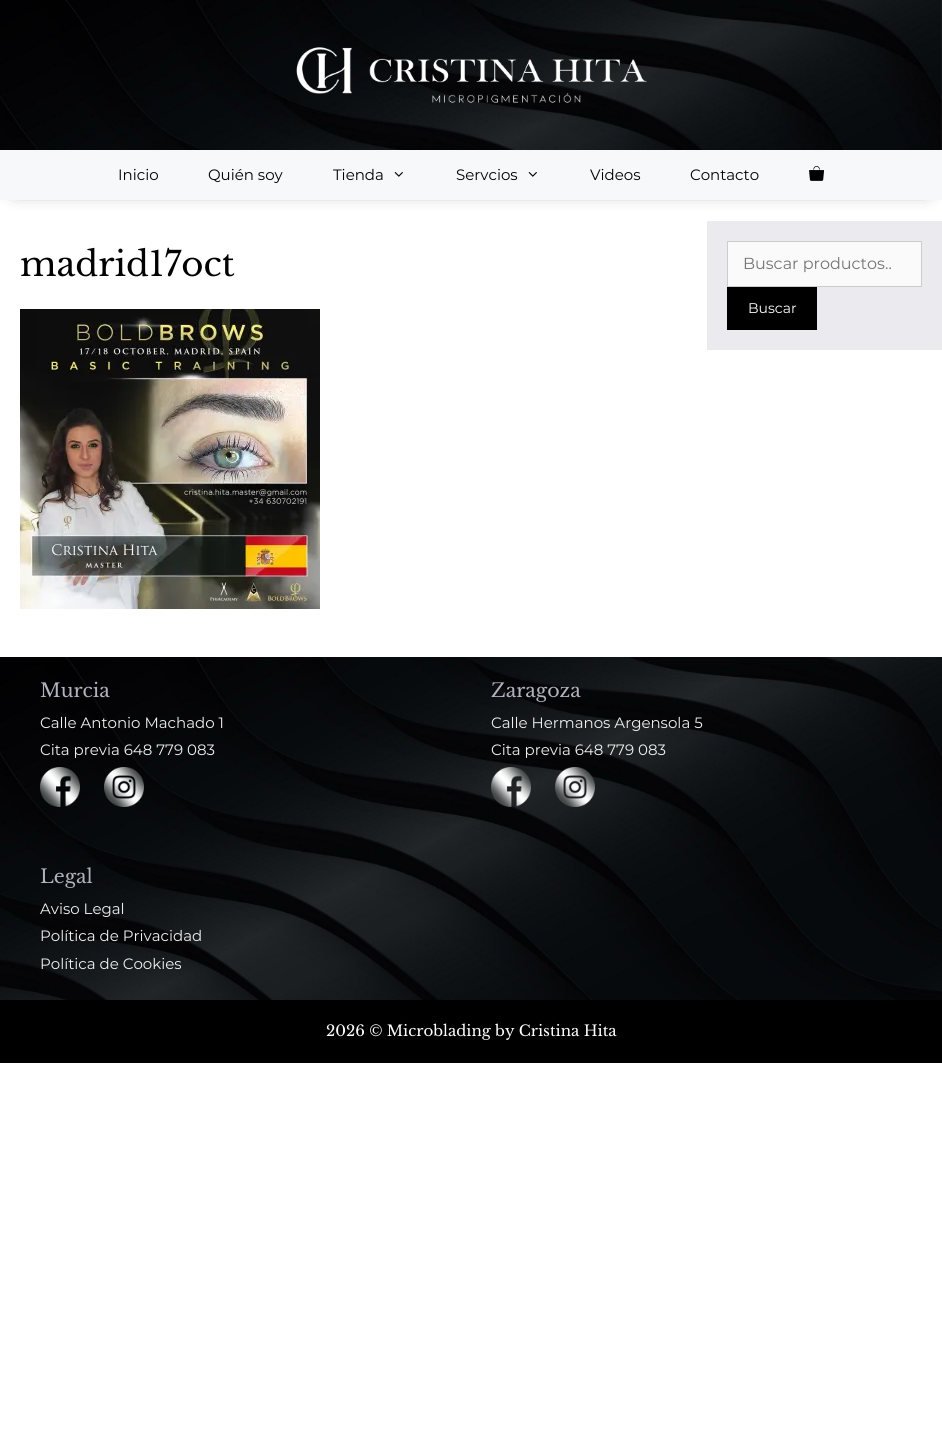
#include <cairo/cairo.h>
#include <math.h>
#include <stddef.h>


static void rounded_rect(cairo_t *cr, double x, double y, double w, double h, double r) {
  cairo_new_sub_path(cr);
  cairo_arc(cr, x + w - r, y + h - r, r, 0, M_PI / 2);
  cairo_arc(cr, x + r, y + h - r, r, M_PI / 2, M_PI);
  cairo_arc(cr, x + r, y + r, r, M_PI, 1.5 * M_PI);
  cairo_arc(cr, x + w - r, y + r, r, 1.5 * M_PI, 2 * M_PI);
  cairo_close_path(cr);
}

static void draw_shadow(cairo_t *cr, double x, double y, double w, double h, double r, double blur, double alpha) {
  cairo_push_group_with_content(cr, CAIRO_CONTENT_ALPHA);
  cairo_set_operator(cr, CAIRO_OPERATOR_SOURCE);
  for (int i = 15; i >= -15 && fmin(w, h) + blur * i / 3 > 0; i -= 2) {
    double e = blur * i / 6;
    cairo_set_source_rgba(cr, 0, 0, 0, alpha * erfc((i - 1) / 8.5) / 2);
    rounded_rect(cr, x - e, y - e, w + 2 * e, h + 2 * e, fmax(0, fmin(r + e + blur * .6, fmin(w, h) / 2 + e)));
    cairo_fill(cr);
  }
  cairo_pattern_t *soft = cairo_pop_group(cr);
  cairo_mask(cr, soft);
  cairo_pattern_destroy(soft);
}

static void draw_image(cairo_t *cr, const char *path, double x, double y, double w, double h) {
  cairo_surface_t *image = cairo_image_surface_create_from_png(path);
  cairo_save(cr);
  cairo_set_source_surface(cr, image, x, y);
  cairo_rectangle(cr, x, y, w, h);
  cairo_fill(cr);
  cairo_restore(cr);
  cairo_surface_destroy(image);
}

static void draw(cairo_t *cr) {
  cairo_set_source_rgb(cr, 1, 1, 1);
  cairo_paint(cr);
  cairo_set_source_rgb(cr, 30 / 255.0, 20 / 255.0, 15 / 255.0);
  draw_shadow(cr, 15, 166, 912, 20, 0, 10, 1);
  draw_image(cr, "images/1.png", 0, 0, 942, 150);
  draw_image(cr, "images/2.png", 296, 47, 351, 56);
  cairo_set_source_rgb(cr, 247 / 255.0, 248 / 255.0, 249 / 255.0);
  cairo_rectangle(cr, 0, 150, 942, 50);
  cairo_fill(cr);
  draw_image(cr, "images/3.png", 394, 172, 9, 5);
  draw_image(cr, "images/3.png", 528, 172, 9, 5);
  draw_image(cr, "images/4.png", 809, 166, 16, 15);
  draw_image(cr, "images/5.png", 20, 309, 300, 300);
  cairo_set_source_rgb(cr, 235 / 255.0, 235 / 255.0, 239 / 255.0);
  cairo_rectangle(cr, 707, 221, 235, 129);
  cairo_fill(cr);
  cairo_set_source_rgb(cr, 250 / 255.0, 250 / 255.0, 250 / 255.0);
  cairo_rectangle(cr, 727.5, 241.5, 194, 45);
  cairo_fill_preserve(cr);
  cairo_set_source_rgb(cr, 204 / 255.0, 204 / 255.0, 204 / 255.0);
  cairo_set_line_width(cr, 1);
  cairo_stroke(cr);
  cairo_set_source_rgb(cr, 0, 0, 0);
  cairo_rectangle(cr, 727, 287, 90, 43);
  cairo_fill(cr);
  draw_image(cr, "images/6.png", 0, 657, 942, 343);
  draw_image(cr, "images/7.png", 40, 767, 40, 40);
  draw_image(cr, "images/8.png", 104, 767, 40, 40);
  draw_image(cr, "images/9.png", 491, 767, 40, 40);
  draw_image(cr, "images/10.png", 555, 767, 40, 40);
  cairo_rectangle(cr, 0, 1000, 942, 63);
  cairo_fill(cr);
  cairo_select_font_face(cr, "Montserrat", CAIRO_FONT_SLANT_NORMAL, CAIRO_FONT_WEIGHT_NORMAL);
  cairo_set_font_size(cr, 15);
  cairo_move_to(cr, 118, 180);
  cairo_show_text(cr, "Inicio");
  cairo_move_to(cr, 208, 180);
  cairo_show_text(cr, "Quién soy");
  cairo_move_to(cr, 333, 180);
  cairo_show_text(cr, "Tienda");
  cairo_move_to(cr, 456, 180);
  cairo_show_text(cr, "Servcios");
  cairo_move_to(cr, 590, 180);
  cairo_show_text(cr, "Videos");
  cairo_move_to(cr, 690, 180);
  cairo_show_text(cr, "Contacto");
  cairo_select_font_face(cr, "Libre Baskerville", CAIRO_FONT_SLANT_NORMAL, CAIRO_FONT_WEIGHT_NORMAL);
  cairo_set_font_size(cr, 34);
  cairo_move_to(cr, 20, 276);
  cairo_show_text(cr, "madrid17oct");
  cairo_save(cr);
  cairo_rectangle(cr, 743, 254, 148, 19);
  cairo_clip(cr);
  cairo_select_font_face(cr, "Montserrat", CAIRO_FONT_SLANT_NORMAL, CAIRO_FONT_WEIGHT_NORMAL);
  cairo_set_font_size(cr, 16);
  cairo_set_source_rgb(cr, 117 / 255.0, 117 / 255.0, 117 / 255.0);
  cairo_move_to(cr, 743, 269);
  cairo_show_text(cr, "Buscar productos…");
  cairo_restore(cr);
  cairo_select_font_face(cr, "Montserrat", CAIRO_FONT_SLANT_NORMAL, CAIRO_FONT_WEIGHT_NORMAL);
  cairo_set_font_size(cr, 14);
  cairo_set_source_rgb(cr, 1, 1, 1);
  cairo_move_to(cr, 748, 313);
  cairo_show_text(cr, "Buscar");
  cairo_select_font_face(cr, "Libre Baskerville", CAIRO_FONT_SLANT_NORMAL, CAIRO_FONT_WEIGHT_NORMAL);
  cairo_set_font_size(cr, 19);
  cairo_set_source_rgb(cr, 178 / 255.0, 178 / 255.0, 190 / 255.0);
  cairo_move_to(cr, 40, 697);
  cairo_show_text(cr, "Murcia");
  cairo_select_font_face(cr, "Montserrat", CAIRO_FONT_SLANT_NORMAL, CAIRO_FONT_WEIGHT_NORMAL);
  cairo_set_font_size(cr, 15);
  cairo_set_source_rgb(cr, 239 / 255.0, 239 / 255.0, 239 / 255.0);
  cairo_move_to(cr, 40, 728);
  cairo_show_text(cr, "Calle Antonio Machado 1");
  cairo_move_to(cr, 40, 755);
  cairo_show_text(cr, "Cita previa 648 779 083");
  cairo_select_font_face(cr, "Libre Baskerville", CAIRO_FONT_SLANT_NORMAL, CAIRO_FONT_WEIGHT_NORMAL);
  cairo_set_font_size(cr, 19);
  cairo_set_source_rgb(cr, 178 / 255.0, 178 / 255.0, 190 / 255.0);
  cairo_move_to(cr, 491, 697);
  cairo_show_text(cr, "Zaragoza");
  cairo_select_font_face(cr, "Montserrat", CAIRO_FONT_SLANT_NORMAL, CAIRO_FONT_WEIGHT_NORMAL);
  cairo_set_font_size(cr, 15);
  cairo_set_source_rgb(cr, 239 / 255.0, 239 / 255.0, 239 / 255.0);
  cairo_move_to(cr, 491, 728);
  cairo_show_text(cr, "Calle Hermanos Argensola 5");
  cairo_move_to(cr, 491, 755);
  cairo_show_text(cr, "Cita previa 648 779 083");
  cairo_select_font_face(cr, "Libre Baskerville", CAIRO_FONT_SLANT_NORMAL, CAIRO_FONT_WEIGHT_NORMAL);
  cairo_set_font_size(cr, 19);
  cairo_set_source_rgb(cr, 178 / 255.0, 178 / 255.0, 190 / 255.0);
  cairo_move_to(cr, 40, 883);
  cairo_show_text(cr, "Legal");
  cairo_select_font_face(cr, "Montserrat", CAIRO_FONT_SLANT_NORMAL, CAIRO_FONT_WEIGHT_NORMAL);
  cairo_set_font_size(cr, 15);
  cairo_set_source_rgb(cr, 239 / 255.0, 239 / 255.0, 239 / 255.0);
  cairo_move_to(cr, 40, 914);
  cairo_show_text(cr, "Aviso Legal");
  cairo_move_to(cr, 40, 941);
  cairo_show_text(cr, "Política de Privacidad");
  cairo_move_to(cr, 40, 969);
  cairo_show_text(cr, "Política de Cookies");
  cairo_select_font_face(cr, "Libre Baskerville", CAIRO_FONT_SLANT_NORMAL, CAIRO_FONT_WEIGHT_NORMAL);
  cairo_set_source_rgb(cr, 1, 1, 1);
  cairo_move_to(cr, 326, 1036);
  cairo_show_text(cr, "2026 © Microblading by Cristina Hita");
}

int main(void) {
  cairo_surface_t *surface = cairo_image_surface_create(CAIRO_FORMAT_RGB24, 942, 1436);
  cairo_t *cr = cairo_create(surface);
  cairo_font_options_t *options = cairo_font_options_create();
  cairo_font_options_set_hint_metrics(options, CAIRO_HINT_METRICS_OFF);
  cairo_font_options_set_hint_style(options, CAIRO_HINT_STYLE_NONE);
  cairo_set_font_options(cr, options);
  cairo_set_miter_limit(cr, 4);
  draw(cr);
  cairo_surface_write_to_png(surface, "out.png");
  cairo_font_options_destroy(options);
  cairo_destroy(cr);
  cairo_surface_destroy(surface);
  return 0;
}
